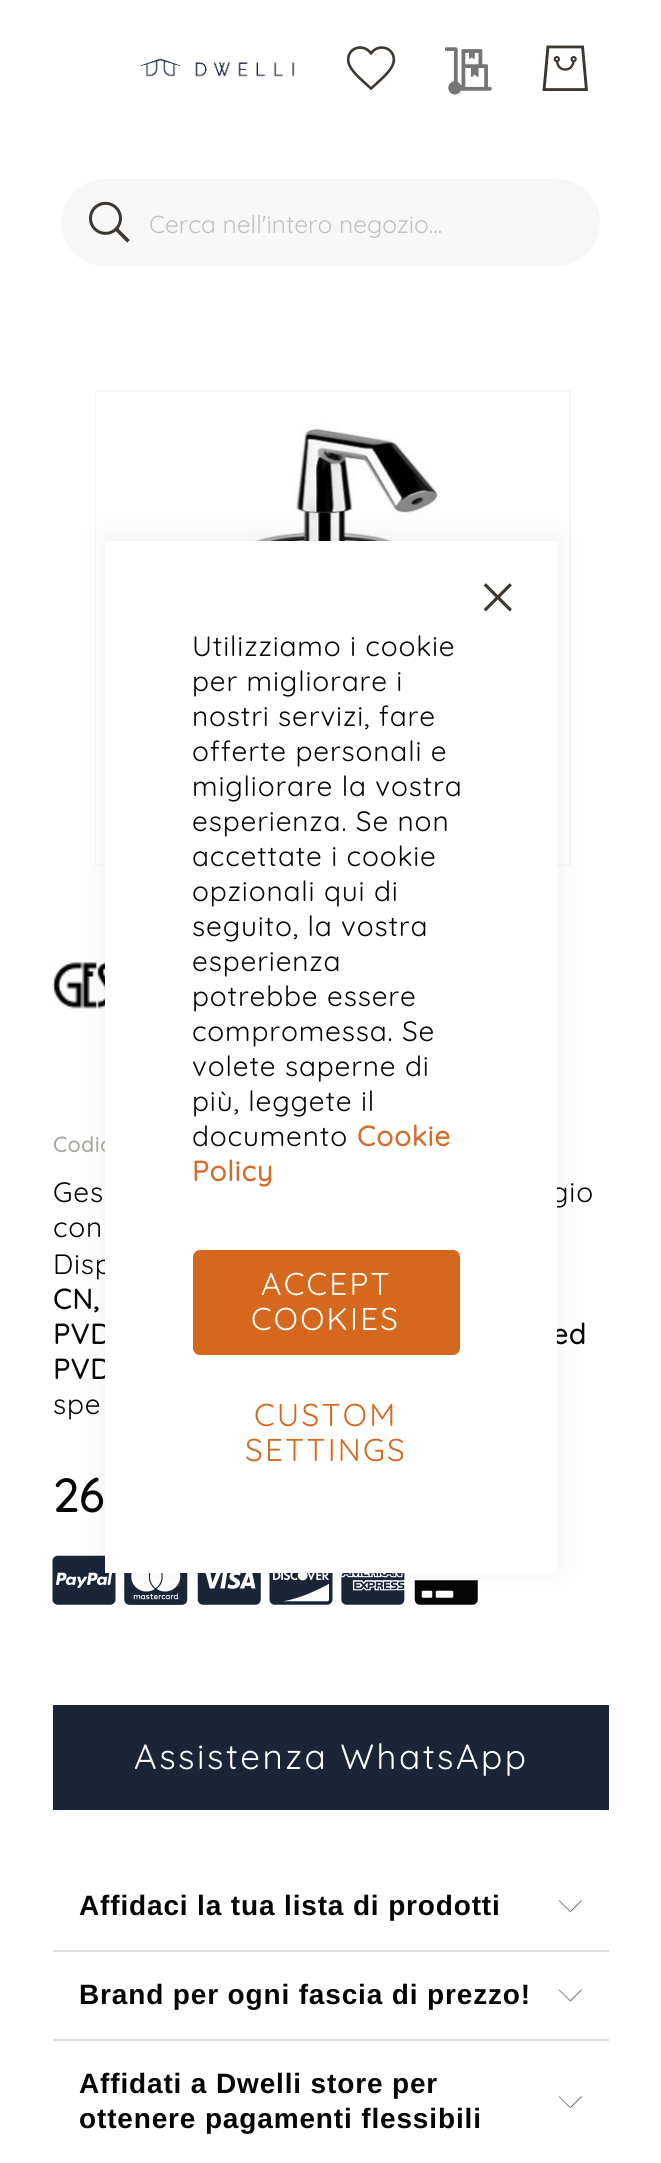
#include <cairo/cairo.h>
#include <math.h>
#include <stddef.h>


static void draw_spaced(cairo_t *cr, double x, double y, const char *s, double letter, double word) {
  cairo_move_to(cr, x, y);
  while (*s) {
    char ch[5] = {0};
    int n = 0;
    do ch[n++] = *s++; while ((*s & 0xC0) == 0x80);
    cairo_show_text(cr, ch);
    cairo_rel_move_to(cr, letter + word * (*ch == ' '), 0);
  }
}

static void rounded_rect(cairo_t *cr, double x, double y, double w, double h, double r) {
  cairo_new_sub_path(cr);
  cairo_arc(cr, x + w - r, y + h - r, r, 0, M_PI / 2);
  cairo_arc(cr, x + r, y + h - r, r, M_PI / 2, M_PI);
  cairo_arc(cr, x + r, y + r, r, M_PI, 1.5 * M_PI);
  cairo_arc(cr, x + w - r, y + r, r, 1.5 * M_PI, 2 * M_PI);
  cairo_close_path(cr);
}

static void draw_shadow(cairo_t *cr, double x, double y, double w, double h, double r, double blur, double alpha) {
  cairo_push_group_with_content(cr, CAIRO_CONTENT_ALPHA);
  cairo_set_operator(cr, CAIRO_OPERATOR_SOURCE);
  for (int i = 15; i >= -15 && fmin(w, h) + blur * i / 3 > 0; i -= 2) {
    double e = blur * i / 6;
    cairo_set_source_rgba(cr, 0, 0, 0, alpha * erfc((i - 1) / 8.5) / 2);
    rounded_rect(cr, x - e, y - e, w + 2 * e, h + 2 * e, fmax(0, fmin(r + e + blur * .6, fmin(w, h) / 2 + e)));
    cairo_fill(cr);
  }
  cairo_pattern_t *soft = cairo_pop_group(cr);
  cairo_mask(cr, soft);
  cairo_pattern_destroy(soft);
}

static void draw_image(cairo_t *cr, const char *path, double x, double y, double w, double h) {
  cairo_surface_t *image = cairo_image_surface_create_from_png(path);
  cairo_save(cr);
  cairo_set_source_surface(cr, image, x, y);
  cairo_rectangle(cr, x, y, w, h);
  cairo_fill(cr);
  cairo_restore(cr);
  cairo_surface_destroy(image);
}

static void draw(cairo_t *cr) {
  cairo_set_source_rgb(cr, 1, 1, 1);
  cairo_paint(cr);
  draw_image(cr, "images/1.png", 141, 58, 154, 19);
  draw_image(cr, "images/2.png", 346, 46, 50, 45);
  draw_image(cr, "images/3.png", 445, 47, 47, 48);
  draw_image(cr, "images/4.png", 542, 45, 46, 46);
  cairo_set_source_rgb(cr, 247 / 255.0, 247 / 255.0, 247 / 255.0);
  rounded_rect(cr, 61, 179, 539, 87, 43.5);
  cairo_fill(cr);
  draw_image(cr, "images/5.png", 88, 201, 42, 42);
  cairo_rectangle(cr, 96, 391, 474, 474);
  cairo_stroke(cr);
  draw_image(cr, "images/6.png", 96, 392, 472, 473);
  draw_image(cr, "images/7.png", 52, 962, 53, 47);
  draw_image(cr, "images/8.png", 52, 1555, 64, 50);
  draw_image(cr, "images/9.png", 124, 1573, 64, 32);
  draw_image(cr, "images/10.png", 197, 1573, 64, 32);
  draw_image(cr, "images/11.png", 269, 1573, 64, 32);
  draw_image(cr, "images/12.png", 341, 1573, 64, 32);
  draw_image(cr, "images/13.png", 414, 1580, 64, 25);
  cairo_set_source_rgb(cr, 26 / 255.0, 38 / 255.0, 56 / 255.0);
  cairo_rectangle(cr, 53, 1705, 556, 105);
  cairo_fill(cr);
  cairo_set_source_rgb(cr, 221 / 255.0, 221 / 255.0, 221 / 255.0);
  cairo_rectangle(cr, 53, 1950, 556, 2);
  cairo_fill(cr);
  draw_image(cr, "images/14.png", 558, 1900, 24, 13);
  cairo_rectangle(cr, 53, 2039, 556, 2);
  cairo_fill(cr);
  draw_image(cr, "images/15.png", 558, 1989, 24, 13);
  draw_image(cr, "images/14.png", 558, 2096, 24, 13);
  cairo_set_source_rgb(cr, 0, 0, 0);
  draw_shadow(cr, 105, 537, 452, 1033, 0, 16, 0.06);
  cairo_select_font_face(cr, "Quicksand Light", CAIRO_FONT_SLANT_NORMAL, CAIRO_FONT_WEIGHT_NORMAL);
  cairo_set_font_size(cr, 24.5);
  cairo_set_source_rgb(cr, 194 / 255.0, 194 / 255.0, 194 / 255.0);
  cairo_move_to(cr, 149, 233);
  cairo_show_text(cr, "Cerca nell'intero negozio...");
  cairo_select_font_face(cr, "Quicksand", CAIRO_FONT_SLANT_NORMAL, CAIRO_FONT_WEIGHT_BOLD);
  cairo_set_font_size(cr, 21);
  cairo_set_source_rgb(cr, 168 / 255.0, 166 / 255.0, 159 / 255.0);
  draw_spaced(cr, 53, 1152, "Codic", 0.85, 0);
  cairo_select_font_face(cr, "Quicksand Light", CAIRO_FONT_SLANT_NORMAL, CAIRO_FONT_WEIGHT_NORMAL);
  cairo_set_font_size(cr, 28);
  cairo_set_source_rgb(cr, 7 / 255.0, 6 / 255.0, 5 / 255.0);
  draw_spaced(cr, 53, 1202, "Ges", 0.85, 0);
  draw_spaced(cr, 551, 1202, "gio", 0.85, 0);
  draw_spaced(cr, 53, 1237, "con", 0.85, 0);
  draw_spaced(cr, 53, 1274, "Disp", 0.85, 0);
  cairo_select_font_face(cr, "Quicksand", CAIRO_FONT_SLANT_NORMAL, CAIRO_FONT_WEIGHT_BOLD);
  draw_spaced(cr, 53, 1309, "CN,", 0.85, 0);
  draw_spaced(cr, 53, 1344, "PVD", 0.85, 0);
  draw_spaced(cr, 552, 1344, "ed", 0.85, 0);
  draw_spaced(cr, 53, 1379, "PVD", 0.85, 0);
  cairo_select_font_face(cr, "Quicksand Light", CAIRO_FONT_SLANT_NORMAL, CAIRO_FONT_WEIGHT_NORMAL);
  draw_spaced(cr, 53, 1414, "spe", 0.85, 0);
  cairo_select_font_face(cr, "Quicksand", CAIRO_FONT_SLANT_NORMAL, CAIRO_FONT_WEIGHT_BOLD);
  cairo_set_font_size(cr, 46);
  cairo_move_to(cr, 53, 1512);
  cairo_show_text(cr, "26");
  cairo_select_font_face(cr, "Quicksand Light", CAIRO_FONT_SLANT_NORMAL, CAIRO_FONT_WEIGHT_NORMAL);
  cairo_set_font_size(cr, 35);
  cairo_set_source_rgb(cr, 1, 1, 1);
  draw_spaced(cr, 134, 1769, "Assistenza WhatsApp", 2.5, 0);
  cairo_select_font_face(cr, "Liberation Sans", CAIRO_FONT_SLANT_NORMAL, CAIRO_FONT_WEIGHT_BOLD);
  cairo_set_font_size(cr, 28);
  cairo_set_source_rgb(cr, 7 / 255.0, 6 / 255.0, 5 / 255.0);
  draw_spaced(cr, 79, 1915, "Affidaci la tua lista di prodotti", 0.85, 0);
  draw_spaced(cr, 79, 2004, "Brand per ogni fascia di prezzo!", 0.85, 0);
  draw_spaced(cr, 79, 2093, "Affidati a Dwelli store per", 0.85, 0);
  draw_spaced(cr, 79, 2128, "ottenere pagamenti flessibili", 0.85, 0);
  cairo_set_source_rgb(cr, 1, 1, 1);
  cairo_rectangle(cr, 105, 541, 452, 1032);
  cairo_fill(cr);
  draw_image(cr, "images/16.png", 483, 583, 29, 29);
  cairo_select_font_face(cr, "Quicksand Light", CAIRO_FONT_SLANT_NORMAL, CAIRO_FONT_WEIGHT_NORMAL);
  cairo_set_source_rgb(cr, 7 / 255.0, 6 / 255.0, 5 / 255.0);
  draw_spaced(cr, 192, 656, "Utilizziamo i cookie", 0.85, 0);
  draw_spaced(cr, 192, 691, "per migliorare i", 0.85, 0);
  draw_spaced(cr, 192, 726, "nostri servizi, fare", 0.85, 0);
  draw_spaced(cr, 192, 761, "offerte personali e", 0.85, 0);
  draw_spaced(cr, 192, 796, "migliorare la vostra", 0.85, 0);
  draw_spaced(cr, 192, 831, "esperienza. Se non", 0.85, 0);
  draw_spaced(cr, 192, 866, "accettate i cookie", 0.85, 0);
  draw_spaced(cr, 192, 901, "opzionali qui di", 0.85, 0);
  draw_spaced(cr, 192, 936, "seguito, la vostra", 0.85, 0);
  draw_spaced(cr, 192, 971, "esperienza", 0.85, 0);
  draw_spaced(cr, 192, 1006, "potrebbe essere", 0.85, 0);
  draw_spaced(cr, 192, 1041, "compromessa. Se", 0.85, 0);
  draw_spaced(cr, 192, 1076, "volete saperne di", 0.85, 0);
  draw_spaced(cr, 192, 1111, "più, leggete il", 0.85, 0);
  draw_spaced(cr, 192, 1146, "documento", 0.85, 0);
  cairo_select_font_face(cr, "Quicksand", CAIRO_FONT_SLANT_NORMAL, CAIRO_FONT_WEIGHT_BOLD);
  cairo_set_source_rgb(cr, 213 / 255.0, 106 / 255.0, 41 / 255.0);
  draw_spaced(cr, 357, 1146, "Cookie", 0.85, 0);
  draw_spaced(cr, 192, 1181, "Policy", 0.85, 0);
  cairo_set_source_rgb(cr, 213 / 255.0, 104 / 255.0, 28 / 255.0);
  rounded_rect(cr, 193, 1250, 267, 105, 7);
  cairo_fill(cr);
  cairo_select_font_face(cr, "Quicksand Light", CAIRO_FONT_SLANT_NORMAL, CAIRO_FONT_WEIGHT_NORMAL);
  cairo_set_font_size(cr, 31.5);
  cairo_set_source_rgb(cr, 1, 1, 1);
  draw_spaced(cr, 261, 1295, "ACCEPT", 2.25, 0);
  draw_spaced(cr, 251, 1330, "COOKIES", 2.25, 0);
  cairo_set_source_rgb(cr, 213 / 255.0, 104 / 255.0, 28 / 255.0);
  draw_spaced(cr, 254, 1426, "CUSTOM", 2.25, 0);
  draw_spaced(cr, 245, 1461, "SETTINGS", 2.25, 0);
}

int main(void) {
  cairo_surface_t *surface = cairo_image_surface_create(CAIRO_FORMAT_RGB24, 661, 2163);
  cairo_t *cr = cairo_create(surface);
  cairo_font_options_t *options = cairo_font_options_create();
  cairo_font_options_set_hint_metrics(options, CAIRO_HINT_METRICS_OFF);
  cairo_font_options_set_hint_style(options, CAIRO_HINT_STYLE_NONE);
  cairo_set_font_options(cr, options);
  cairo_set_miter_limit(cr, 4);
  draw(cr);
  cairo_surface_write_to_png(surface, "out.png");
  cairo_font_options_destroy(options);
  cairo_destroy(cr);
  cairo_surface_destroy(surface);
  return 0;
}
